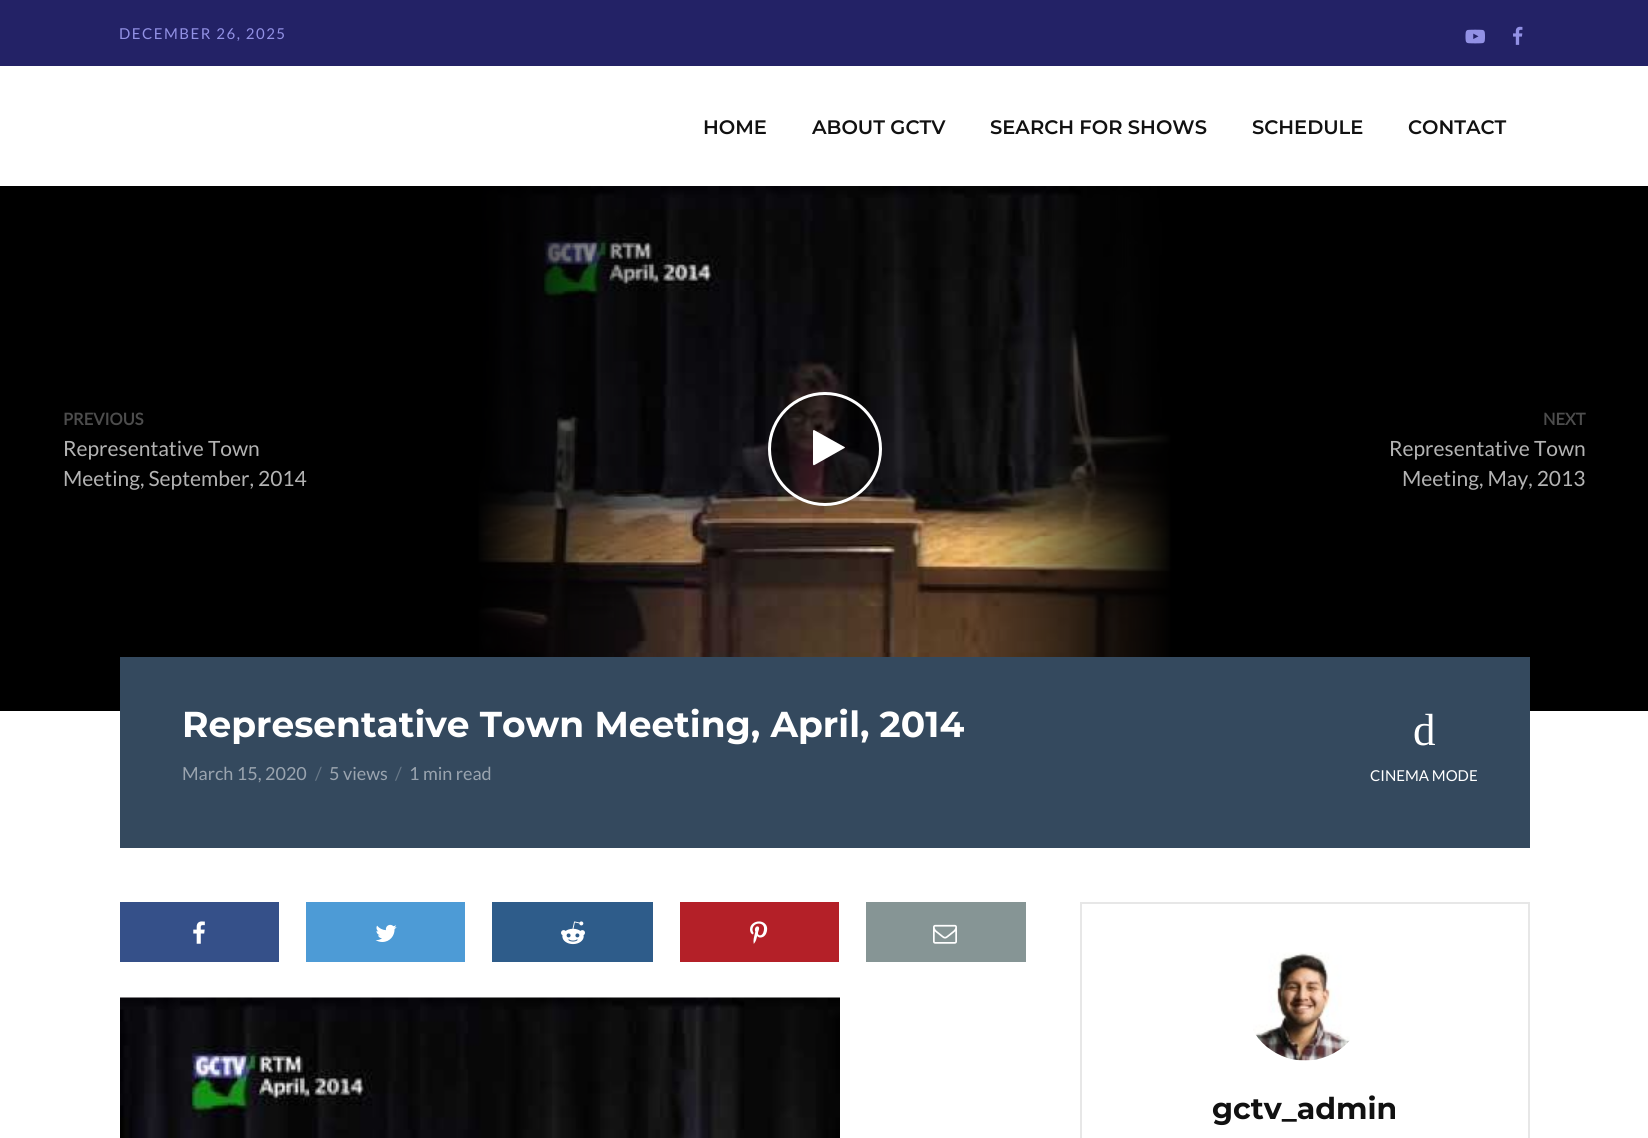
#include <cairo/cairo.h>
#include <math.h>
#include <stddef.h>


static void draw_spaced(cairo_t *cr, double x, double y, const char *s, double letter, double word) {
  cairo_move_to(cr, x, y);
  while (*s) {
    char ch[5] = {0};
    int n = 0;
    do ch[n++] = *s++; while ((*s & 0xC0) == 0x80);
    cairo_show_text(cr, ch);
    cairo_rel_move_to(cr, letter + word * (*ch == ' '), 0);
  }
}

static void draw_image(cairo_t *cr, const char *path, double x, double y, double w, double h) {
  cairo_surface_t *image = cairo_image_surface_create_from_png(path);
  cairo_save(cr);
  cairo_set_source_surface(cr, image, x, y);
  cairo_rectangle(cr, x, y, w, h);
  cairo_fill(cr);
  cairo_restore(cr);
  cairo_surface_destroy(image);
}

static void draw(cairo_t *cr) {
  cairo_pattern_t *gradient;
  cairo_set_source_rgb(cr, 1, 1, 1);
  cairo_paint(cr);
  cairo_set_source_rgb(cr, 35 / 255.0, 34 / 255.0, 102 / 255.0);
  cairo_rectangle(cr, 0, 0, 1648, 66);
  cairo_fill(cr);
  draw_image(cr, "images/1.png", 1465, 29, 20, 15);
  draw_image(cr, "images/2.png", 1513, 26, 10, 19);
  cairo_set_source_rgb(cr, 0, 0, 0);
  cairo_rectangle(cr, 0, 186, 1648, 525);
  cairo_fill(cr);
  draw_image(cr, "images/3.png", 475, 186, 699, 471);
  gradient = cairo_pattern_create_linear(474, 449, 684, 449);
  cairo_pattern_add_color_stop_rgba(gradient, 0, 0, 0, 0, 1);
  cairo_pattern_add_color_stop_rgba(gradient, 1, 0, 0, 0, 0);
  cairo_set_source(cr, gradient);
  cairo_pattern_destroy(gradient);
  cairo_rectangle(cr, 475, 186, 204, 471);
  cairo_fill(cr);
  cairo_set_source_rgba(cr, 0, 0, 0, 0.5);
  cairo_arc(cr, 825, 449, 55.5, 0, 2 * M_PI);
  cairo_fill_preserve(cr);
  cairo_set_source_rgb(cr, 1, 1, 1);
  cairo_set_line_width(cr, 3);
  cairo_stroke(cr);
  cairo_new_path(cr);
  cairo_move_to(cr, 844.5, 448);
  cairo_curve_to(cr, 845, 448, 845, 447, 844.5, 447);
  cairo_line_to(cr, 814, 430);
  cairo_line_to(cr, 813, 430.5);
  cairo_line_to(cr, 813, 458.5);
  cairo_curve_to(cr, 813, 463.5, 812.5, 466, 814.5, 465);
  cairo_close_path(cr);
  cairo_fill(cr);
  gradient = cairo_pattern_create_linear(965, 449, 1175, 449);
  cairo_pattern_add_color_stop_rgba(gradient, 0, 0, 0, 0, 0);
  cairo_pattern_add_color_stop_rgba(gradient, 1, 0, 0, 0, 1);
  cairo_set_source(cr, gradient);
  cairo_pattern_destroy(gradient);
  cairo_rectangle(cr, 970, 186, 204, 471);
  cairo_fill(cr);
  cairo_set_source_rgb(cr, 52 / 255.0, 73 / 255.0, 94 / 255.0);
  cairo_rectangle(cr, 120, 657, 1410, 191);
  cairo_fill(cr);
  cairo_set_source_rgb(cr, 53 / 255.0, 80 / 255.0, 137 / 255.0);
  cairo_rectangle(cr, 120, 902, 159, 60);
  cairo_fill(cr);
  draw_image(cr, "images/4.png", 193, 921, 12, 23);
  cairo_set_source_rgb(cr, 77 / 255.0, 155 / 255.0, 214 / 255.0);
  cairo_rectangle(cr, 306, 902, 159, 60);
  cairo_fill(cr);
  draw_image(cr, "images/5.png", 375, 924, 22, 18);
  cairo_set_source_rgb(cr, 46 / 255.0, 92 / 255.0, 138 / 255.0);
  cairo_rectangle(cr, 492, 902, 161, 60);
  cairo_fill(cr);
  draw_image(cr, "images/6.png", 561, 921, 24, 24);
  cairo_set_source_rgb(cr, 180 / 255.0, 32 / 255.0, 40 / 255.0);
  cairo_rectangle(cr, 680, 902, 159, 60);
  cairo_fill(cr);
  draw_image(cr, "images/7.png", 750, 921, 18, 23);
  cairo_set_source_rgb(cr, 134 / 255.0, 149 / 255.0, 149 / 255.0);
  cairo_rectangle(cr, 866, 902, 160, 60);
  cairo_fill(cr);
  draw_image(cr, "images/8.png", 933, 924, 24, 20);
  draw_image(cr, "images/9.png", 120, 997, 720, 141);
  cairo_rectangle(cr, 1081, 903, 448, 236);
  cairo_set_source_rgb(cr, 231 / 255.0, 231 / 255.0, 231 / 255.0);
  cairo_set_line_width(cr, 2);
  cairo_stroke(cr);
  draw_image(cr, "images/10.png", 1253, 952, 97, 109);
  cairo_select_font_face(cr, "Lato", CAIRO_FONT_SLANT_NORMAL, CAIRO_FONT_WEIGHT_NORMAL);
  cairo_set_font_size(cr, 15);
  cairo_set_source_rgb(cr, 146 / 255.0, 145 / 255.0, 229 / 255.0);
  draw_spaced(cr, 119, 39, "DECEMBER 26, 2025", 1.5, 0);
  cairo_select_font_face(cr, "Montserrat SemiBold", CAIRO_FONT_SLANT_NORMAL, CAIRO_FONT_WEIGHT_NORMAL);
  cairo_set_font_size(cr, 19.5);
  cairo_set_source_rgb(cr, 17 / 255.0, 17 / 255.0, 17 / 255.0);
  cairo_move_to(cr, 703, 134);
  cairo_show_text(cr, "HOME");
  cairo_move_to(cr, 812, 134);
  cairo_show_text(cr, "ABOUT GCTV");
  cairo_move_to(cr, 990, 134);
  cairo_show_text(cr, "SEARCH FOR SHOWS");
  cairo_move_to(cr, 1252, 134);
  cairo_show_text(cr, "SCHEDULE");
  cairo_move_to(cr, 1408, 134);
  cairo_show_text(cr, "CONTACT");
  cairo_select_font_face(cr, "Lato", CAIRO_FONT_SLANT_NORMAL, CAIRO_FONT_WEIGHT_BOLD);
  cairo_set_font_size(cr, 16.5);
  cairo_set_source_rgb(cr, 77 / 255.0, 77 / 255.0, 77 / 255.0);
  cairo_move_to(cr, 63, 425);
  cairo_show_text(cr, "PREVIOUS");
  cairo_select_font_face(cr, "Lato", CAIRO_FONT_SLANT_NORMAL, CAIRO_FONT_WEIGHT_NORMAL);
  cairo_set_font_size(cr, 21);
  cairo_set_source_rgb(cr, 179 / 255.0, 179 / 255.0, 179 / 255.0);
  cairo_move_to(cr, 63, 456);
  cairo_show_text(cr, "Representative Town");
  cairo_move_to(cr, 63, 486);
  cairo_show_text(cr, "Meeting, September, 2014");
  cairo_select_font_face(cr, "Lato", CAIRO_FONT_SLANT_NORMAL, CAIRO_FONT_WEIGHT_BOLD);
  cairo_set_font_size(cr, 16.5);
  cairo_set_source_rgb(cr, 77 / 255.0, 77 / 255.0, 77 / 255.0);
  cairo_move_to(cr, 1543, 425);
  cairo_show_text(cr, "NEXT");
  cairo_select_font_face(cr, "Lato", CAIRO_FONT_SLANT_NORMAL, CAIRO_FONT_WEIGHT_NORMAL);
  cairo_set_font_size(cr, 21);
  cairo_set_source_rgb(cr, 179 / 255.0, 179 / 255.0, 179 / 255.0);
  cairo_move_to(cr, 1389, 456);
  cairo_show_text(cr, "Representative Town");
  cairo_move_to(cr, 1402, 486);
  cairo_show_text(cr, "Meeting, May, 2013");
  cairo_select_font_face(cr, "Montserrat", CAIRO_FONT_SLANT_NORMAL, CAIRO_FONT_WEIGHT_BOLD);
  cairo_set_font_size(cr, 36);
  cairo_set_source_rgb(cr, 1, 1, 1);
  cairo_move_to(cr, 182, 737);
  cairo_show_text(cr, "Representative Town Meeting, April, 2014");
  cairo_select_font_face(cr, "Lato", CAIRO_FONT_SLANT_NORMAL, CAIRO_FONT_WEIGHT_NORMAL);
  cairo_set_font_size(cr, 18);
  cairo_set_source_rgb(cr, 154 / 255.0, 164 / 255.0, 175 / 255.0);
  cairo_move_to(cr, 182, 780);
  cairo_show_text(cr, "March 15, 2020");
  cairo_set_source_rgb(cr, 103 / 255.0, 119 / 255.0, 135 / 255.0);
  cairo_move_to(cr, 315, 780);
  cairo_show_text(cr, "/");
  cairo_set_source_rgb(cr, 154 / 255.0, 164 / 255.0, 175 / 255.0);
  cairo_move_to(cr, 329, 780);
  cairo_show_text(cr, "5 views");
  cairo_set_source_rgb(cr, 103 / 255.0, 119 / 255.0, 135 / 255.0);
  cairo_move_to(cr, 395, 780);
  cairo_show_text(cr, "/");
  cairo_set_source_rgb(cr, 154 / 255.0, 164 / 255.0, 175 / 255.0);
  cairo_move_to(cr, 409, 780);
  cairo_show_text(cr, "1 min read");
  cairo_select_font_face(cr, "Liberation Serif", CAIRO_FONT_SLANT_NORMAL, CAIRO_FONT_WEIGHT_NORMAL);
  cairo_set_font_size(cr, 45);
  cairo_set_source_rgb(cr, 1, 1, 1);
  cairo_move_to(cr, 1413, 745);
  cairo_show_text(cr, "d");
  cairo_select_font_face(cr, "Lato", CAIRO_FONT_SLANT_NORMAL, CAIRO_FONT_WEIGHT_NORMAL);
  cairo_set_font_size(cr, 15);
  cairo_move_to(cr, 1370, 781);
  cairo_show_text(cr, "CINEMA MODE");
  cairo_select_font_face(cr, "Montserrat", CAIRO_FONT_SLANT_NORMAL, CAIRO_FONT_WEIGHT_BOLD);
  cairo_set_font_size(cr, 30);
  cairo_set_source_rgb(cr, 17 / 255.0, 17 / 255.0, 17 / 255.0);
  cairo_move_to(cr, 1212, 1119);
  cairo_show_text(cr, "gctv_admin");
}

int main(void) {
  cairo_surface_t *surface = cairo_image_surface_create(CAIRO_FORMAT_RGB24, 1648, 1138);
  cairo_t *cr = cairo_create(surface);
  cairo_font_options_t *options = cairo_font_options_create();
  cairo_font_options_set_hint_metrics(options, CAIRO_HINT_METRICS_OFF);
  cairo_font_options_set_hint_style(options, CAIRO_HINT_STYLE_NONE);
  cairo_set_font_options(cr, options);
  cairo_set_miter_limit(cr, 4);
  draw(cr);
  cairo_surface_write_to_png(surface, "out.png");
  cairo_font_options_destroy(options);
  cairo_destroy(cr);
  cairo_surface_destroy(surface);
  return 0;
}
